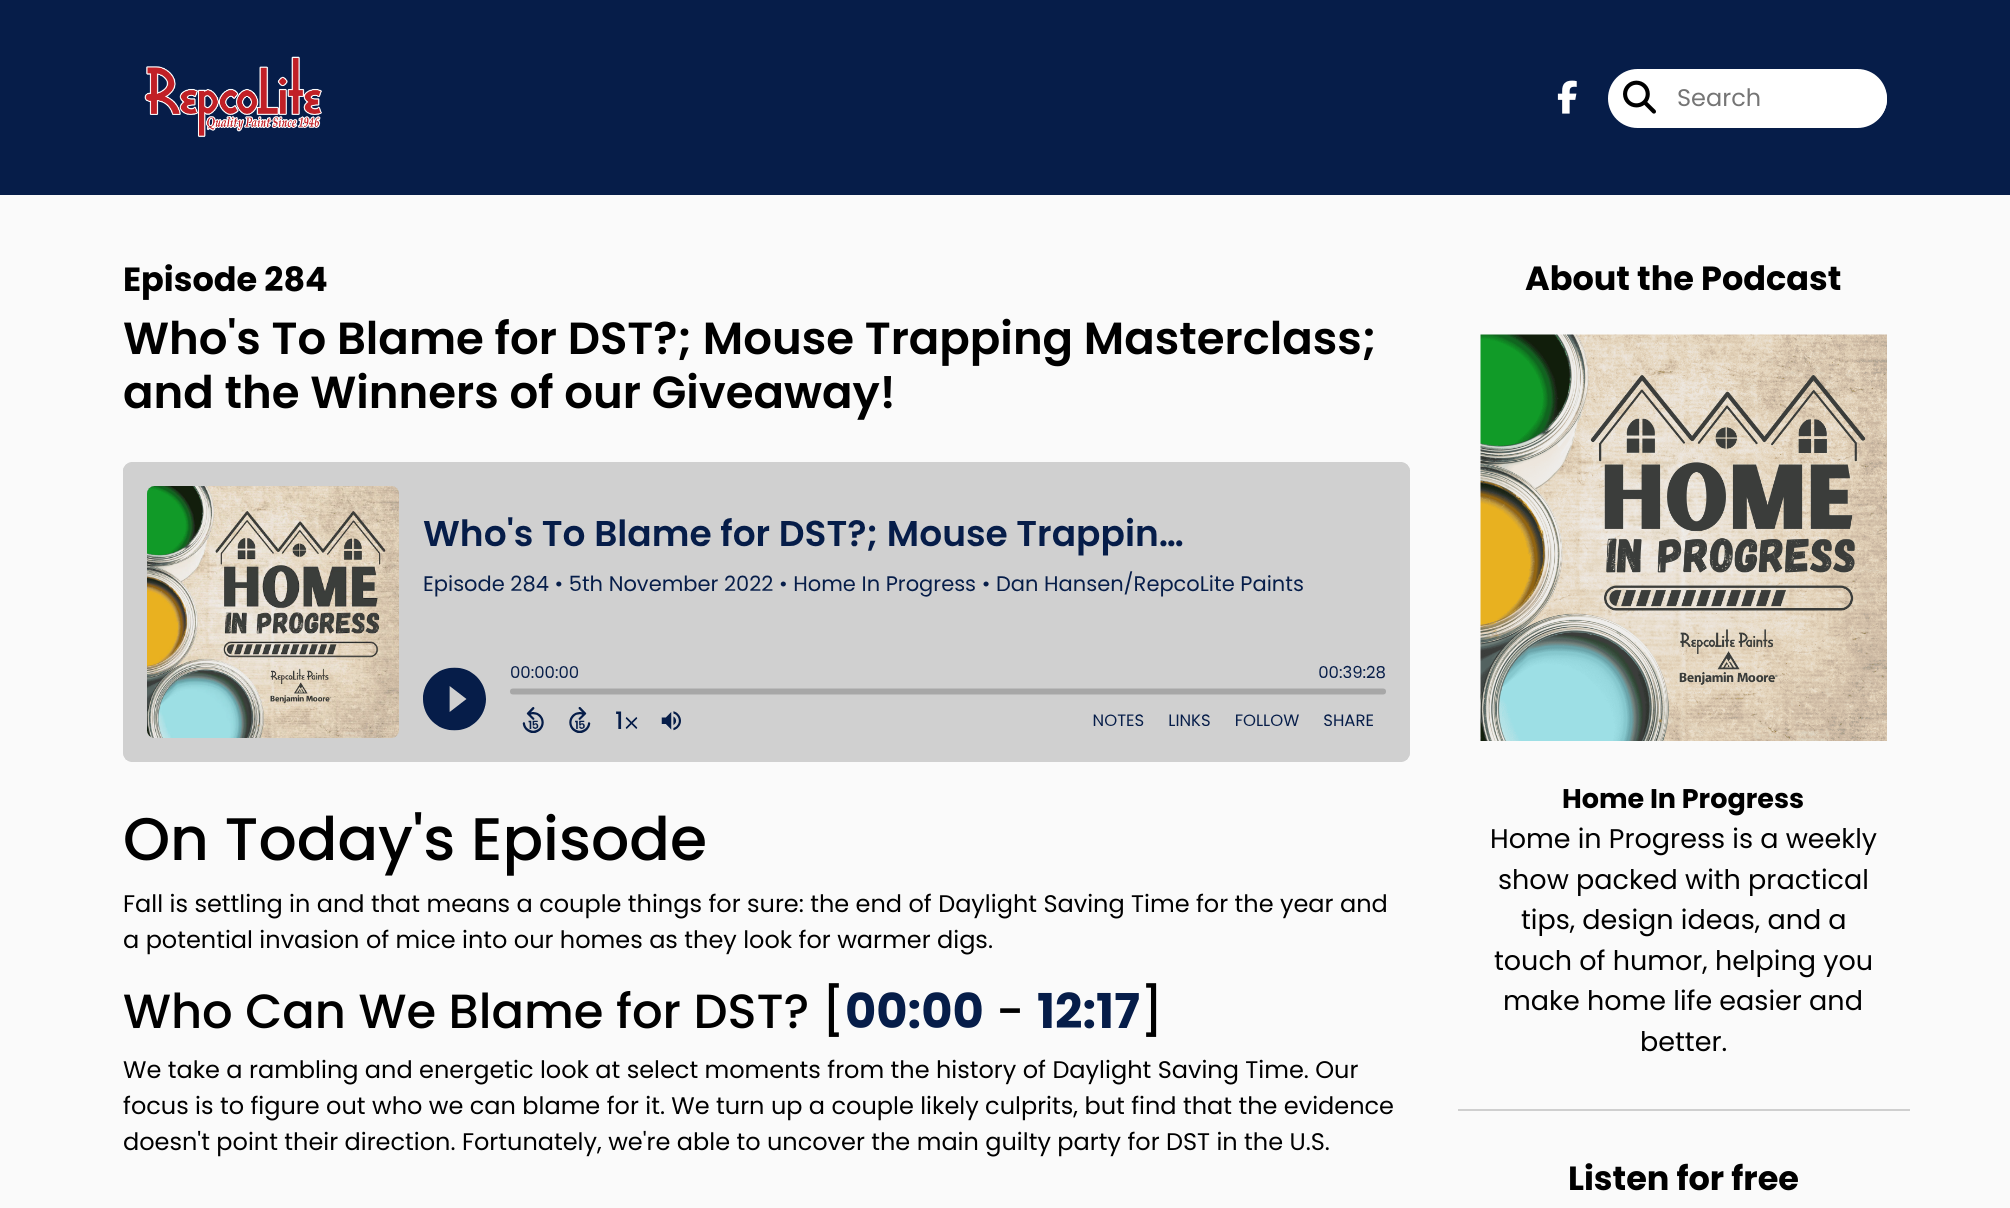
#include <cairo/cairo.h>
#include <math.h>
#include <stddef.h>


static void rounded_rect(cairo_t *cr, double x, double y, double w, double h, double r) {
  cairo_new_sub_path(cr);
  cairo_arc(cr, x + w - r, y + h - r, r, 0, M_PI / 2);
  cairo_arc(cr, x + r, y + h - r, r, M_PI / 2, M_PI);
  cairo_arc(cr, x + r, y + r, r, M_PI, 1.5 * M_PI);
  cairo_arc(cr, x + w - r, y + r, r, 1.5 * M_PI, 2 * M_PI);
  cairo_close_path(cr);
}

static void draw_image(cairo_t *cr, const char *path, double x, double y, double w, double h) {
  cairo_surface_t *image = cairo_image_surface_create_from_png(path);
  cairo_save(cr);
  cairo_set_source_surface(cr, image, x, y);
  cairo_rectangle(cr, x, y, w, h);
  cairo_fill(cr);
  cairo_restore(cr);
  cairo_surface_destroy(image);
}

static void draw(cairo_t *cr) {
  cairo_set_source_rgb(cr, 6 / 255.0, 29 / 255.0, 73 / 255.0);
  cairo_paint(cr);
  draw_image(cr, "images/1.png", 144, 56, 178, 82);
  draw_image(cr, "images/2.png", 1557, 80, 20, 34);
  cairo_set_source_rgb(cr, 1, 1, 1);
  rounded_rect(cr, 1608, 69, 279, 59, 29.5);
  cairo_fill(cr);
  draw_image(cr, "images/3.png", 1623, 80, 33, 34);
  rounded_rect(cr, 1677, 74, 210, 51, 25.5);
  cairo_fill(cr);
  cairo_set_source_rgb(cr, 250 / 255.0, 250 / 255.0, 250 / 255.0);
  cairo_rectangle(cr, 0, 195, 2010, 1013);
  cairo_fill(cr);
  draw_image(cr, "images/4.png", 123, 462, 1287, 300);
  cairo_set_source_rgb(cr, 207 / 255.0, 207 / 255.0, 207 / 255.0);
  cairo_rectangle(cr, 1458, 1109, 452, 2);
  cairo_fill(cr);
  draw_image(cr, "images/5.png", 1480, 334, 407, 407);
  cairo_select_font_face(cr, "Poppins", CAIRO_FONT_SLANT_NORMAL, CAIRO_FONT_WEIGHT_NORMAL);
  cairo_set_font_size(cr, 24);
  cairo_set_source_rgb(cr, 117 / 255.0, 117 / 255.0, 117 / 255.0);
  cairo_move_to(cr, 1677, 106);
  cairo_show_text(cr, "Search");
  cairo_select_font_face(cr, "Poppins", CAIRO_FONT_SLANT_NORMAL, CAIRO_FONT_WEIGHT_BOLD);
  cairo_set_font_size(cr, 33.5);
  cairo_set_source_rgb(cr, 0, 0, 0);
  cairo_move_to(cr, 123, 291);
  cairo_show_text(cr, "Episode 284");
  cairo_select_font_face(cr, "Poppins SemiBold", CAIRO_FONT_SLANT_NORMAL, CAIRO_FONT_WEIGHT_NORMAL);
  cairo_set_font_size(cr, 45);
  cairo_move_to(cr, 123, 354);
  cairo_show_text(cr, "Who's To Blame for DST?; Mouse Trapping Masterclass;");
  cairo_move_to(cr, 123, 408);
  cairo_show_text(cr, "and the Winners of our Giveaway!");
  cairo_select_font_face(cr, "Poppins Medium", CAIRO_FONT_SLANT_NORMAL, CAIRO_FONT_WEIGHT_NORMAL);
  cairo_set_font_size(cr, 60);
  cairo_move_to(cr, 123, 860);
  cairo_show_text(cr, "On Today's Episode");
  cairo_select_font_face(cr, "Poppins", CAIRO_FONT_SLANT_NORMAL, CAIRO_FONT_WEIGHT_NORMAL);
  cairo_set_font_size(cr, 24);
  cairo_move_to(cr, 123, 912);
  cairo_show_text(cr, "Fall is settling in and that means a couple things for sure: the end of Daylight Saving Time for the year and");
  cairo_move_to(cr, 123, 948);
  cairo_show_text(cr, "a potential invasion of mice into our homes as they look for warmer digs.");
  cairo_select_font_face(cr, "Poppins Medium", CAIRO_FONT_SLANT_NORMAL, CAIRO_FONT_WEIGHT_NORMAL);
  cairo_set_font_size(cr, 48);
  cairo_move_to(cr, 123, 1028);
  cairo_show_text(cr, "Who Can We Blame for DST? [");
  cairo_select_font_face(cr, "Poppins", CAIRO_FONT_SLANT_NORMAL, CAIRO_FONT_WEIGHT_BOLD);
  cairo_set_source_rgb(cr, 6 / 255.0, 29 / 255.0, 73 / 255.0);
  cairo_move_to(cr, 845, 1028);
  cairo_show_text(cr, "00:00");
  cairo_select_font_face(cr, "Poppins Medium", CAIRO_FONT_SLANT_NORMAL, CAIRO_FONT_WEIGHT_NORMAL);
  cairo_set_source_rgb(cr, 0, 0, 0);
  cairo_move_to(cr, 996, 1028);
  cairo_show_text(cr, "-");
  cairo_select_font_face(cr, "Poppins", CAIRO_FONT_SLANT_NORMAL, CAIRO_FONT_WEIGHT_BOLD);
  cairo_set_source_rgb(cr, 6 / 255.0, 29 / 255.0, 73 / 255.0);
  cairo_move_to(cr, 1037, 1028);
  cairo_show_text(cr, "12:17");
  cairo_select_font_face(cr, "Poppins Medium", CAIRO_FONT_SLANT_NORMAL, CAIRO_FONT_WEIGHT_NORMAL);
  cairo_set_source_rgb(cr, 0, 0, 0);
  cairo_move_to(cr, 1140, 1028);
  cairo_show_text(cr, "]");
  cairo_select_font_face(cr, "Poppins", CAIRO_FONT_SLANT_NORMAL, CAIRO_FONT_WEIGHT_NORMAL);
  cairo_set_font_size(cr, 24);
  cairo_move_to(cr, 123, 1078);
  cairo_show_text(cr, "We take a rambling and energetic look at select moments from the history of Daylight Saving Time. Our");
  cairo_move_to(cr, 123, 1114);
  cairo_show_text(cr, "focus is to figure out who we can blame for it. We turn up a couple likely culprits, but find that the evidence");
  cairo_move_to(cr, 123, 1150);
  cairo_show_text(cr, "doesn't point their direction. Fortunately, we're able to uncover the main guilty party for DST in the U.S.");
  cairo_select_font_face(cr, "Poppins", CAIRO_FONT_SLANT_NORMAL, CAIRO_FONT_WEIGHT_BOLD);
  cairo_set_font_size(cr, 33.5);
  cairo_move_to(cr, 1525, 290);
  cairo_show_text(cr, "About the Podcast");
  cairo_set_font_size(cr, 27);
  cairo_move_to(cr, 1562, 808);
  cairo_show_text(cr, "Home In Progress");
  cairo_select_font_face(cr, "Poppins", CAIRO_FONT_SLANT_NORMAL, CAIRO_FONT_WEIGHT_NORMAL);
  cairo_move_to(cr, 1490, 848);
  cairo_show_text(cr, "Home in Progress is a weekly");
  cairo_move_to(cr, 1498, 889);
  cairo_show_text(cr, "show packed with practical");
  cairo_move_to(cr, 1521, 929);
  cairo_show_text(cr, "tips, design ideas, and a");
  cairo_move_to(cr, 1494, 970);
  cairo_show_text(cr, "touch of humor, helping you");
  cairo_move_to(cr, 1503, 1010);
  cairo_show_text(cr, "make home life easier and");
  cairo_move_to(cr, 1640, 1051);
  cairo_show_text(cr, "better.");
  cairo_select_font_face(cr, "Poppins", CAIRO_FONT_SLANT_NORMAL, CAIRO_FONT_WEIGHT_BOLD);
  cairo_set_font_size(cr, 33.5);
  cairo_move_to(cr, 1568, 1190);
  cairo_show_text(cr, "Listen for free");
}

int main(void) {
  cairo_surface_t *surface = cairo_image_surface_create(CAIRO_FORMAT_RGB24, 2010, 1208);
  cairo_t *cr = cairo_create(surface);
  cairo_font_options_t *options = cairo_font_options_create();
  cairo_font_options_set_hint_metrics(options, CAIRO_HINT_METRICS_OFF);
  cairo_font_options_set_hint_style(options, CAIRO_HINT_STYLE_NONE);
  cairo_set_font_options(cr, options);
  cairo_set_miter_limit(cr, 4);
  draw(cr);
  cairo_surface_write_to_png(surface, "out.png");
  cairo_font_options_destroy(options);
  cairo_destroy(cr);
  cairo_surface_destroy(surface);
  return 0;
}
